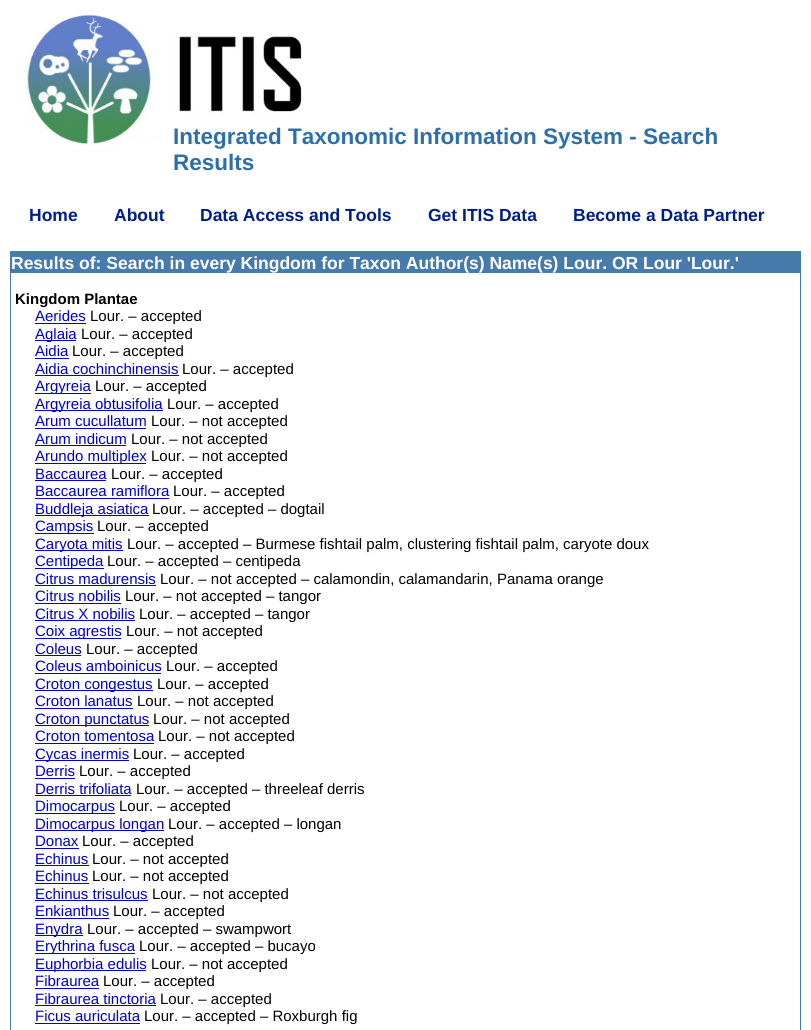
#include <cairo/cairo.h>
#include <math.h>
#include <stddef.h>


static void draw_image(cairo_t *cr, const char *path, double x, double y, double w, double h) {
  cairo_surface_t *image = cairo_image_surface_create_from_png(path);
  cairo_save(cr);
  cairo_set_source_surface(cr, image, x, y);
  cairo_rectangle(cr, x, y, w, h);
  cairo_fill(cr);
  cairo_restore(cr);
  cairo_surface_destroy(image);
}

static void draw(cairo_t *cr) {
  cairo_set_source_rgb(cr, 1, 1, 1);
  cairo_paint(cr);
  draw_image(cr, "images/1.png", 20, 10, 282, 142);
  cairo_set_source_rgb(cr, 71 / 255.0, 122 / 255.0, 173 / 255.0);
  cairo_rectangle(cr, 10, 251, 791, 779);
  cairo_fill(cr);
  cairo_set_source_rgb(cr, 1, 1, 1);
  cairo_rectangle(cr, 11, 273, 789, 757);
  cairo_fill(cr);
  cairo_set_source_rgb(cr, 0, 0, 204 / 255.0);
  cairo_rectangle(cr, 35, 323, 51, 1);
  cairo_fill(cr);
  cairo_rectangle(cr, 35, 340, 41, 1);
  cairo_fill(cr);
  cairo_rectangle(cr, 35, 358, 34, 1);
  cairo_fill(cr);
  cairo_rectangle(cr, 35, 375, 144, 1);
  cairo_fill(cr);
  cairo_rectangle(cr, 35, 393, 56, 1);
  cairo_fill(cr);
  cairo_rectangle(cr, 35, 410, 128, 1);
  cairo_fill(cr);
  cairo_rectangle(cr, 35, 428, 111, 1);
  cairo_fill(cr);
  cairo_rectangle(cr, 35, 445, 91, 1);
  cairo_fill(cr);
  cairo_rectangle(cr, 35, 463, 111, 1);
  cairo_fill(cr);
  cairo_rectangle(cr, 35, 480, 71, 1);
  cairo_fill(cr);
  cairo_rectangle(cr, 35, 498, 134, 1);
  cairo_fill(cr);
  cairo_rectangle(cr, 35, 515, 114, 1);
  cairo_fill(cr);
  cairo_rectangle(cr, 35, 533, 59, 1);
  cairo_fill(cr);
  cairo_rectangle(cr, 35, 550, 88, 1);
  cairo_fill(cr);
  cairo_rectangle(cr, 35, 568, 69, 1);
  cairo_fill(cr);
  cairo_rectangle(cr, 35, 585, 121, 1);
  cairo_fill(cr);
  cairo_rectangle(cr, 35, 603, 86, 1);
  cairo_fill(cr);
  cairo_rectangle(cr, 35, 620, 100, 1);
  cairo_fill(cr);
  cairo_rectangle(cr, 35, 638, 86, 1);
  cairo_fill(cr);
  cairo_rectangle(cr, 35, 655, 46, 1);
  cairo_fill(cr);
  cairo_rectangle(cr, 35, 673, 126, 1);
  cairo_fill(cr);
  cairo_rectangle(cr, 35, 690, 118, 1);
  cairo_fill(cr);
  cairo_rectangle(cr, 35, 708, 98, 1);
  cairo_fill(cr);
  cairo_rectangle(cr, 35, 725, 114, 1);
  cairo_fill(cr);
  cairo_rectangle(cr, 35, 743, 119, 1);
  cairo_fill(cr);
  cairo_rectangle(cr, 35, 760, 94, 1);
  cairo_fill(cr);
  cairo_rectangle(cr, 35, 778, 40, 1);
  cairo_fill(cr);
  cairo_rectangle(cr, 35, 795, 96, 1);
  cairo_fill(cr);
  cairo_rectangle(cr, 35, 813, 80, 1);
  cairo_fill(cr);
  cairo_rectangle(cr, 35, 830, 129, 1);
  cairo_fill(cr);
  cairo_rectangle(cr, 35, 848, 44, 1);
  cairo_fill(cr);
  cairo_rectangle(cr, 35, 865, 54, 1);
  cairo_fill(cr);
  cairo_rectangle(cr, 35, 883, 54, 1);
  cairo_fill(cr);
  cairo_rectangle(cr, 35, 900, 113, 1);
  cairo_fill(cr);
  cairo_rectangle(cr, 35, 918, 74, 1);
  cairo_fill(cr);
  cairo_rectangle(cr, 35, 935, 48, 1);
  cairo_fill(cr);
  cairo_rectangle(cr, 35, 953, 100, 1);
  cairo_fill(cr);
  cairo_rectangle(cr, 35, 970, 111, 1);
  cairo_fill(cr);
  cairo_rectangle(cr, 35, 988, 64, 1);
  cairo_fill(cr);
  cairo_rectangle(cr, 35, 1005, 121, 1);
  cairo_fill(cr);
  cairo_rectangle(cr, 35, 1023, 105, 1);
  cairo_fill(cr);
  cairo_select_font_face(cr, "Liberation Sans", CAIRO_FONT_SLANT_NORMAL, CAIRO_FONT_WEIGHT_BOLD);
  cairo_set_font_size(cr, 22.5);
  cairo_set_source_rgb(cr, 45 / 255.0, 110 / 255.0, 172 / 255.0);
  cairo_move_to(cr, 173, 144);
  cairo_show_text(cr, "Integrated Taxonomic Information System - Search");
  cairo_move_to(cr, 173, 170);
  cairo_show_text(cr, "Results");
  cairo_set_font_size(cr, 17.5);
  cairo_set_source_rgb(cr, 0, 30 / 255.0, 137 / 255.0);
  cairo_move_to(cr, 29, 221);
  cairo_show_text(cr, "Home");
  cairo_move_to(cr, 114, 221);
  cairo_show_text(cr, "About");
  cairo_move_to(cr, 200, 221);
  cairo_show_text(cr, "Data Access and Tools");
  cairo_move_to(cr, 428, 221);
  cairo_show_text(cr, "Get ITIS Data");
  cairo_move_to(cr, 573, 221);
  cairo_show_text(cr, "Become a Data Partner");
  cairo_set_source_rgb(cr, 1, 1, 1);
  cairo_move_to(cr, 11, 269);
  cairo_show_text(cr, "Results of: Search in every Kingdom for Taxon Author(s) Name(s) Lour. OR Lour 'Lour.'");
  cairo_set_font_size(cr, 15);
  cairo_set_source_rgb(cr, 0, 0, 0);
  cairo_move_to(cr, 15, 304);
  cairo_show_text(cr, "Kingdom Plantae");
  cairo_select_font_face(cr, "Liberation Sans", CAIRO_FONT_SLANT_NORMAL, CAIRO_FONT_WEIGHT_NORMAL);
  cairo_set_source_rgb(cr, 0, 0, 204 / 255.0);
  cairo_move_to(cr, 35, 321);
  cairo_show_text(cr, "Aerides");
  cairo_set_source_rgb(cr, 0, 0, 0);
  cairo_move_to(cr, 90, 321);
  cairo_show_text(cr, "Lour. – accepted");
  cairo_set_source_rgb(cr, 0, 0, 204 / 255.0);
  cairo_move_to(cr, 35, 339);
  cairo_show_text(cr, "Aglaia");
  cairo_set_source_rgb(cr, 0, 0, 0);
  cairo_move_to(cr, 81, 339);
  cairo_show_text(cr, "Lour. – accepted");
  cairo_set_source_rgb(cr, 0, 0, 204 / 255.0);
  cairo_move_to(cr, 35, 356);
  cairo_show_text(cr, "Aidia");
  cairo_set_source_rgb(cr, 0, 0, 0);
  cairo_move_to(cr, 72, 356);
  cairo_show_text(cr, "Lour. – accepted");
  cairo_set_source_rgb(cr, 0, 0, 204 / 255.0);
  cairo_move_to(cr, 35, 374);
  cairo_show_text(cr, "Aidia cochinchinensis");
  cairo_set_source_rgb(cr, 0, 0, 0);
  cairo_move_to(cr, 182, 374);
  cairo_show_text(cr, "Lour. – accepted");
  cairo_set_source_rgb(cr, 0, 0, 204 / 255.0);
  cairo_move_to(cr, 35, 391);
  cairo_show_text(cr, "Argyreia");
  cairo_set_source_rgb(cr, 0, 0, 0);
  cairo_move_to(cr, 95, 391);
  cairo_show_text(cr, "Lour. – accepted");
  cairo_set_source_rgb(cr, 0, 0, 204 / 255.0);
  cairo_move_to(cr, 35, 409);
  cairo_show_text(cr, "Argyreia obtusifolia");
  cairo_set_source_rgb(cr, 0, 0, 0);
  cairo_move_to(cr, 167, 409);
  cairo_show_text(cr, "Lour. – accepted");
  cairo_set_source_rgb(cr, 0, 0, 204 / 255.0);
  cairo_move_to(cr, 35, 426);
  cairo_show_text(cr, "Arum cucullatum");
  cairo_set_source_rgb(cr, 0, 0, 0);
  cairo_move_to(cr, 151, 426);
  cairo_show_text(cr, "Lour. – not accepted");
  cairo_set_source_rgb(cr, 0, 0, 204 / 255.0);
  cairo_move_to(cr, 35, 444);
  cairo_show_text(cr, "Arum indicum");
  cairo_set_source_rgb(cr, 0, 0, 0);
  cairo_move_to(cr, 131, 444);
  cairo_show_text(cr, "Lour. – not accepted");
  cairo_set_source_rgb(cr, 0, 0, 204 / 255.0);
  cairo_move_to(cr, 35, 461);
  cairo_show_text(cr, "Arundo multiplex");
  cairo_set_source_rgb(cr, 0, 0, 0);
  cairo_move_to(cr, 151, 461);
  cairo_show_text(cr, "Lour. – not accepted");
  cairo_set_source_rgb(cr, 0, 0, 204 / 255.0);
  cairo_move_to(cr, 35, 479);
  cairo_show_text(cr, "Baccaurea");
  cairo_set_source_rgb(cr, 0, 0, 0);
  cairo_move_to(cr, 111, 479);
  cairo_show_text(cr, "Lour. – accepted");
  cairo_set_source_rgb(cr, 0, 0, 204 / 255.0);
  cairo_move_to(cr, 35, 496);
  cairo_show_text(cr, "Baccaurea ramiflora");
  cairo_set_source_rgb(cr, 0, 0, 0);
  cairo_move_to(cr, 173, 496);
  cairo_show_text(cr, "Lour. – accepted");
  cairo_set_source_rgb(cr, 0, 0, 204 / 255.0);
  cairo_move_to(cr, 35, 514);
  cairo_show_text(cr, "Buddleja asiatica");
  cairo_set_source_rgb(cr, 0, 0, 0);
  cairo_move_to(cr, 152, 514);
  cairo_show_text(cr, "Lour. – accepted – dogtail");
  cairo_set_source_rgb(cr, 0, 0, 204 / 255.0);
  cairo_move_to(cr, 35, 531);
  cairo_show_text(cr, "Campsis");
  cairo_set_source_rgb(cr, 0, 0, 0);
  cairo_move_to(cr, 97, 531);
  cairo_show_text(cr, "Lour. – accepted");
  cairo_set_source_rgb(cr, 0, 0, 204 / 255.0);
  cairo_move_to(cr, 35, 549);
  cairo_show_text(cr, "Caryota mitis");
  cairo_set_source_rgb(cr, 0, 0, 0);
  cairo_move_to(cr, 127, 549);
  cairo_show_text(cr, "Lour. – accepted – Burmese fishtail palm, clustering fishtail palm, caryote doux");
  cairo_set_source_rgb(cr, 0, 0, 204 / 255.0);
  cairo_move_to(cr, 35, 566);
  cairo_show_text(cr, "Centipeda");
  cairo_set_source_rgb(cr, 0, 0, 0);
  cairo_move_to(cr, 107, 566);
  cairo_show_text(cr, "Lour. – accepted – centipeda");
  cairo_set_source_rgb(cr, 0, 0, 204 / 255.0);
  cairo_move_to(cr, 35, 584);
  cairo_show_text(cr, "Citrus madurensis");
  cairo_set_source_rgb(cr, 0, 0, 0);
  cairo_move_to(cr, 160, 584);
  cairo_show_text(cr, "Lour. – not accepted – calamondin, calamandarin, Panama orange");
  cairo_set_source_rgb(cr, 0, 0, 204 / 255.0);
  cairo_move_to(cr, 35, 601);
  cairo_show_text(cr, "Citrus nobilis");
  cairo_set_source_rgb(cr, 0, 0, 0);
  cairo_move_to(cr, 125, 601);
  cairo_show_text(cr, "Lour. – not accepted – tangor");
  cairo_set_source_rgb(cr, 0, 0, 204 / 255.0);
  cairo_move_to(cr, 35, 619);
  cairo_show_text(cr, "Citrus X nobilis");
  cairo_set_source_rgb(cr, 0, 0, 0);
  cairo_move_to(cr, 139, 619);
  cairo_show_text(cr, "Lour. – accepted – tangor");
  cairo_set_source_rgb(cr, 0, 0, 204 / 255.0);
  cairo_move_to(cr, 35, 636);
  cairo_show_text(cr, "Coix agrestis");
  cairo_set_source_rgb(cr, 0, 0, 0);
  cairo_move_to(cr, 126, 636);
  cairo_show_text(cr, "Lour. – not accepted");
  cairo_set_source_rgb(cr, 0, 0, 204 / 255.0);
  cairo_move_to(cr, 35, 654);
  cairo_show_text(cr, "Coleus");
  cairo_set_source_rgb(cr, 0, 0, 0);
  cairo_move_to(cr, 86, 654);
  cairo_show_text(cr, "Lour. – accepted");
  cairo_set_source_rgb(cr, 0, 0, 204 / 255.0);
  cairo_move_to(cr, 35, 671);
  cairo_show_text(cr, "Coleus amboinicus");
  cairo_set_source_rgb(cr, 0, 0, 0);
  cairo_move_to(cr, 166, 671);
  cairo_show_text(cr, "Lour. – accepted");
  cairo_set_source_rgb(cr, 0, 0, 204 / 255.0);
  cairo_move_to(cr, 35, 689);
  cairo_show_text(cr, "Croton congestus");
  cairo_set_source_rgb(cr, 0, 0, 0);
  cairo_move_to(cr, 157, 689);
  cairo_show_text(cr, "Lour. – accepted");
  cairo_set_source_rgb(cr, 0, 0, 204 / 255.0);
  cairo_move_to(cr, 35, 706);
  cairo_show_text(cr, "Croton lanatus");
  cairo_set_source_rgb(cr, 0, 0, 0);
  cairo_move_to(cr, 137, 706);
  cairo_show_text(cr, "Lour. – not accepted");
  cairo_set_source_rgb(cr, 0, 0, 204 / 255.0);
  cairo_move_to(cr, 35, 724);
  cairo_show_text(cr, "Croton punctatus");
  cairo_set_source_rgb(cr, 0, 0, 0);
  cairo_move_to(cr, 153, 724);
  cairo_show_text(cr, "Lour. – not accepted");
  cairo_set_source_rgb(cr, 0, 0, 204 / 255.0);
  cairo_move_to(cr, 35, 741);
  cairo_show_text(cr, "Croton tomentosa");
  cairo_set_source_rgb(cr, 0, 0, 0);
  cairo_move_to(cr, 158, 741);
  cairo_show_text(cr, "Lour. – not accepted");
  cairo_set_source_rgb(cr, 0, 0, 204 / 255.0);
  cairo_move_to(cr, 35, 759);
  cairo_show_text(cr, "Cycas inermis");
  cairo_set_source_rgb(cr, 0, 0, 0);
  cairo_move_to(cr, 133, 759);
  cairo_show_text(cr, "Lour. – accepted");
  cairo_set_source_rgb(cr, 0, 0, 204 / 255.0);
  cairo_move_to(cr, 35, 776);
  cairo_show_text(cr, "Derris");
  cairo_set_source_rgb(cr, 0, 0, 0);
  cairo_move_to(cr, 79, 776);
  cairo_show_text(cr, "Lour. – accepted");
  cairo_set_source_rgb(cr, 0, 0, 204 / 255.0);
  cairo_move_to(cr, 35, 794);
  cairo_show_text(cr, "Derris trifoliata");
  cairo_set_source_rgb(cr, 0, 0, 0);
  cairo_move_to(cr, 136, 794);
  cairo_show_text(cr, "Lour. – accepted – threeleaf derris");
  cairo_set_source_rgb(cr, 0, 0, 204 / 255.0);
  cairo_move_to(cr, 35, 811);
  cairo_show_text(cr, "Dimocarpus");
  cairo_set_source_rgb(cr, 0, 0, 0);
  cairo_move_to(cr, 119, 811);
  cairo_show_text(cr, "Lour. – accepted");
  cairo_set_source_rgb(cr, 0, 0, 204 / 255.0);
  cairo_move_to(cr, 35, 829);
  cairo_show_text(cr, "Dimocarpus longan");
  cairo_set_source_rgb(cr, 0, 0, 0);
  cairo_move_to(cr, 168, 829);
  cairo_show_text(cr, "Lour. – accepted – longan");
  cairo_set_source_rgb(cr, 0, 0, 204 / 255.0);
  cairo_move_to(cr, 35, 846);
  cairo_show_text(cr, "Donax");
  cairo_set_source_rgb(cr, 0, 0, 0);
  cairo_move_to(cr, 82, 846);
  cairo_show_text(cr, "Lour. – accepted");
  cairo_set_source_rgb(cr, 0, 0, 204 / 255.0);
  cairo_move_to(cr, 35, 864);
  cairo_show_text(cr, "Echinus");
  cairo_set_source_rgb(cr, 0, 0, 0);
  cairo_move_to(cr, 92, 864);
  cairo_show_text(cr, "Lour. – not accepted");
  cairo_set_source_rgb(cr, 0, 0, 204 / 255.0);
  cairo_move_to(cr, 35, 881);
  cairo_show_text(cr, "Echinus");
  cairo_set_source_rgb(cr, 0, 0, 0);
  cairo_move_to(cr, 92, 881);
  cairo_show_text(cr, "Lour. – not accepted");
  cairo_set_source_rgb(cr, 0, 0, 204 / 255.0);
  cairo_move_to(cr, 35, 899);
  cairo_show_text(cr, "Echinus trisulcus");
  cairo_set_source_rgb(cr, 0, 0, 0);
  cairo_move_to(cr, 152, 899);
  cairo_show_text(cr, "Lour. – not accepted");
  cairo_set_source_rgb(cr, 0, 0, 204 / 255.0);
  cairo_move_to(cr, 35, 916);
  cairo_show_text(cr, "Enkianthus");
  cairo_set_source_rgb(cr, 0, 0, 0);
  cairo_move_to(cr, 113, 916);
  cairo_show_text(cr, "Lour. – accepted");
  cairo_set_source_rgb(cr, 0, 0, 204 / 255.0);
  cairo_move_to(cr, 35, 934);
  cairo_show_text(cr, "Enydra");
  cairo_set_source_rgb(cr, 0, 0, 0);
  cairo_move_to(cr, 87, 934);
  cairo_show_text(cr, "Lour. – accepted – swampwort");
  cairo_set_source_rgb(cr, 0, 0, 204 / 255.0);
  cairo_move_to(cr, 35, 951);
  cairo_show_text(cr, "Erythrina fusca");
  cairo_set_source_rgb(cr, 0, 0, 0);
  cairo_move_to(cr, 139, 951);
  cairo_show_text(cr, "Lour. – accepted – bucayo");
  cairo_set_source_rgb(cr, 0, 0, 204 / 255.0);
  cairo_move_to(cr, 35, 969);
  cairo_show_text(cr, "Euphorbia edulis");
  cairo_set_source_rgb(cr, 0, 0, 0);
  cairo_move_to(cr, 151, 969);
  cairo_show_text(cr, "Lour. – not accepted");
  cairo_set_source_rgb(cr, 0, 0, 204 / 255.0);
  cairo_move_to(cr, 35, 986);
  cairo_show_text(cr, "Fibraurea");
  cairo_set_source_rgb(cr, 0, 0, 0);
  cairo_move_to(cr, 103, 986);
  cairo_show_text(cr, "Lour. – accepted");
  cairo_set_source_rgb(cr, 0, 0, 204 / 255.0);
  cairo_move_to(cr, 35, 1004);
  cairo_show_text(cr, "Fibraurea tinctoria");
  cairo_set_source_rgb(cr, 0, 0, 0);
  cairo_move_to(cr, 160, 1004);
  cairo_show_text(cr, "Lour. – accepted");
  cairo_set_source_rgb(cr, 0, 0, 204 / 255.0);
  cairo_move_to(cr, 35, 1021);
  cairo_show_text(cr, "Ficus auriculata");
  cairo_set_source_rgb(cr, 0, 0, 0);
  cairo_move_to(cr, 144, 1021);
  cairo_show_text(cr, "Lour. – accepted – Roxburgh fig");
}

int main(void) {
  cairo_surface_t *surface = cairo_image_surface_create(CAIRO_FORMAT_RGB24, 811, 1030);
  cairo_t *cr = cairo_create(surface);
  cairo_font_options_t *options = cairo_font_options_create();
  cairo_font_options_set_hint_metrics(options, CAIRO_HINT_METRICS_OFF);
  cairo_font_options_set_hint_style(options, CAIRO_HINT_STYLE_NONE);
  cairo_set_font_options(cr, options);
  cairo_set_miter_limit(cr, 4);
  draw(cr);
  cairo_surface_write_to_png(surface, "out.png");
  cairo_font_options_destroy(options);
  cairo_destroy(cr);
  cairo_surface_destroy(surface);
  return 0;
}
